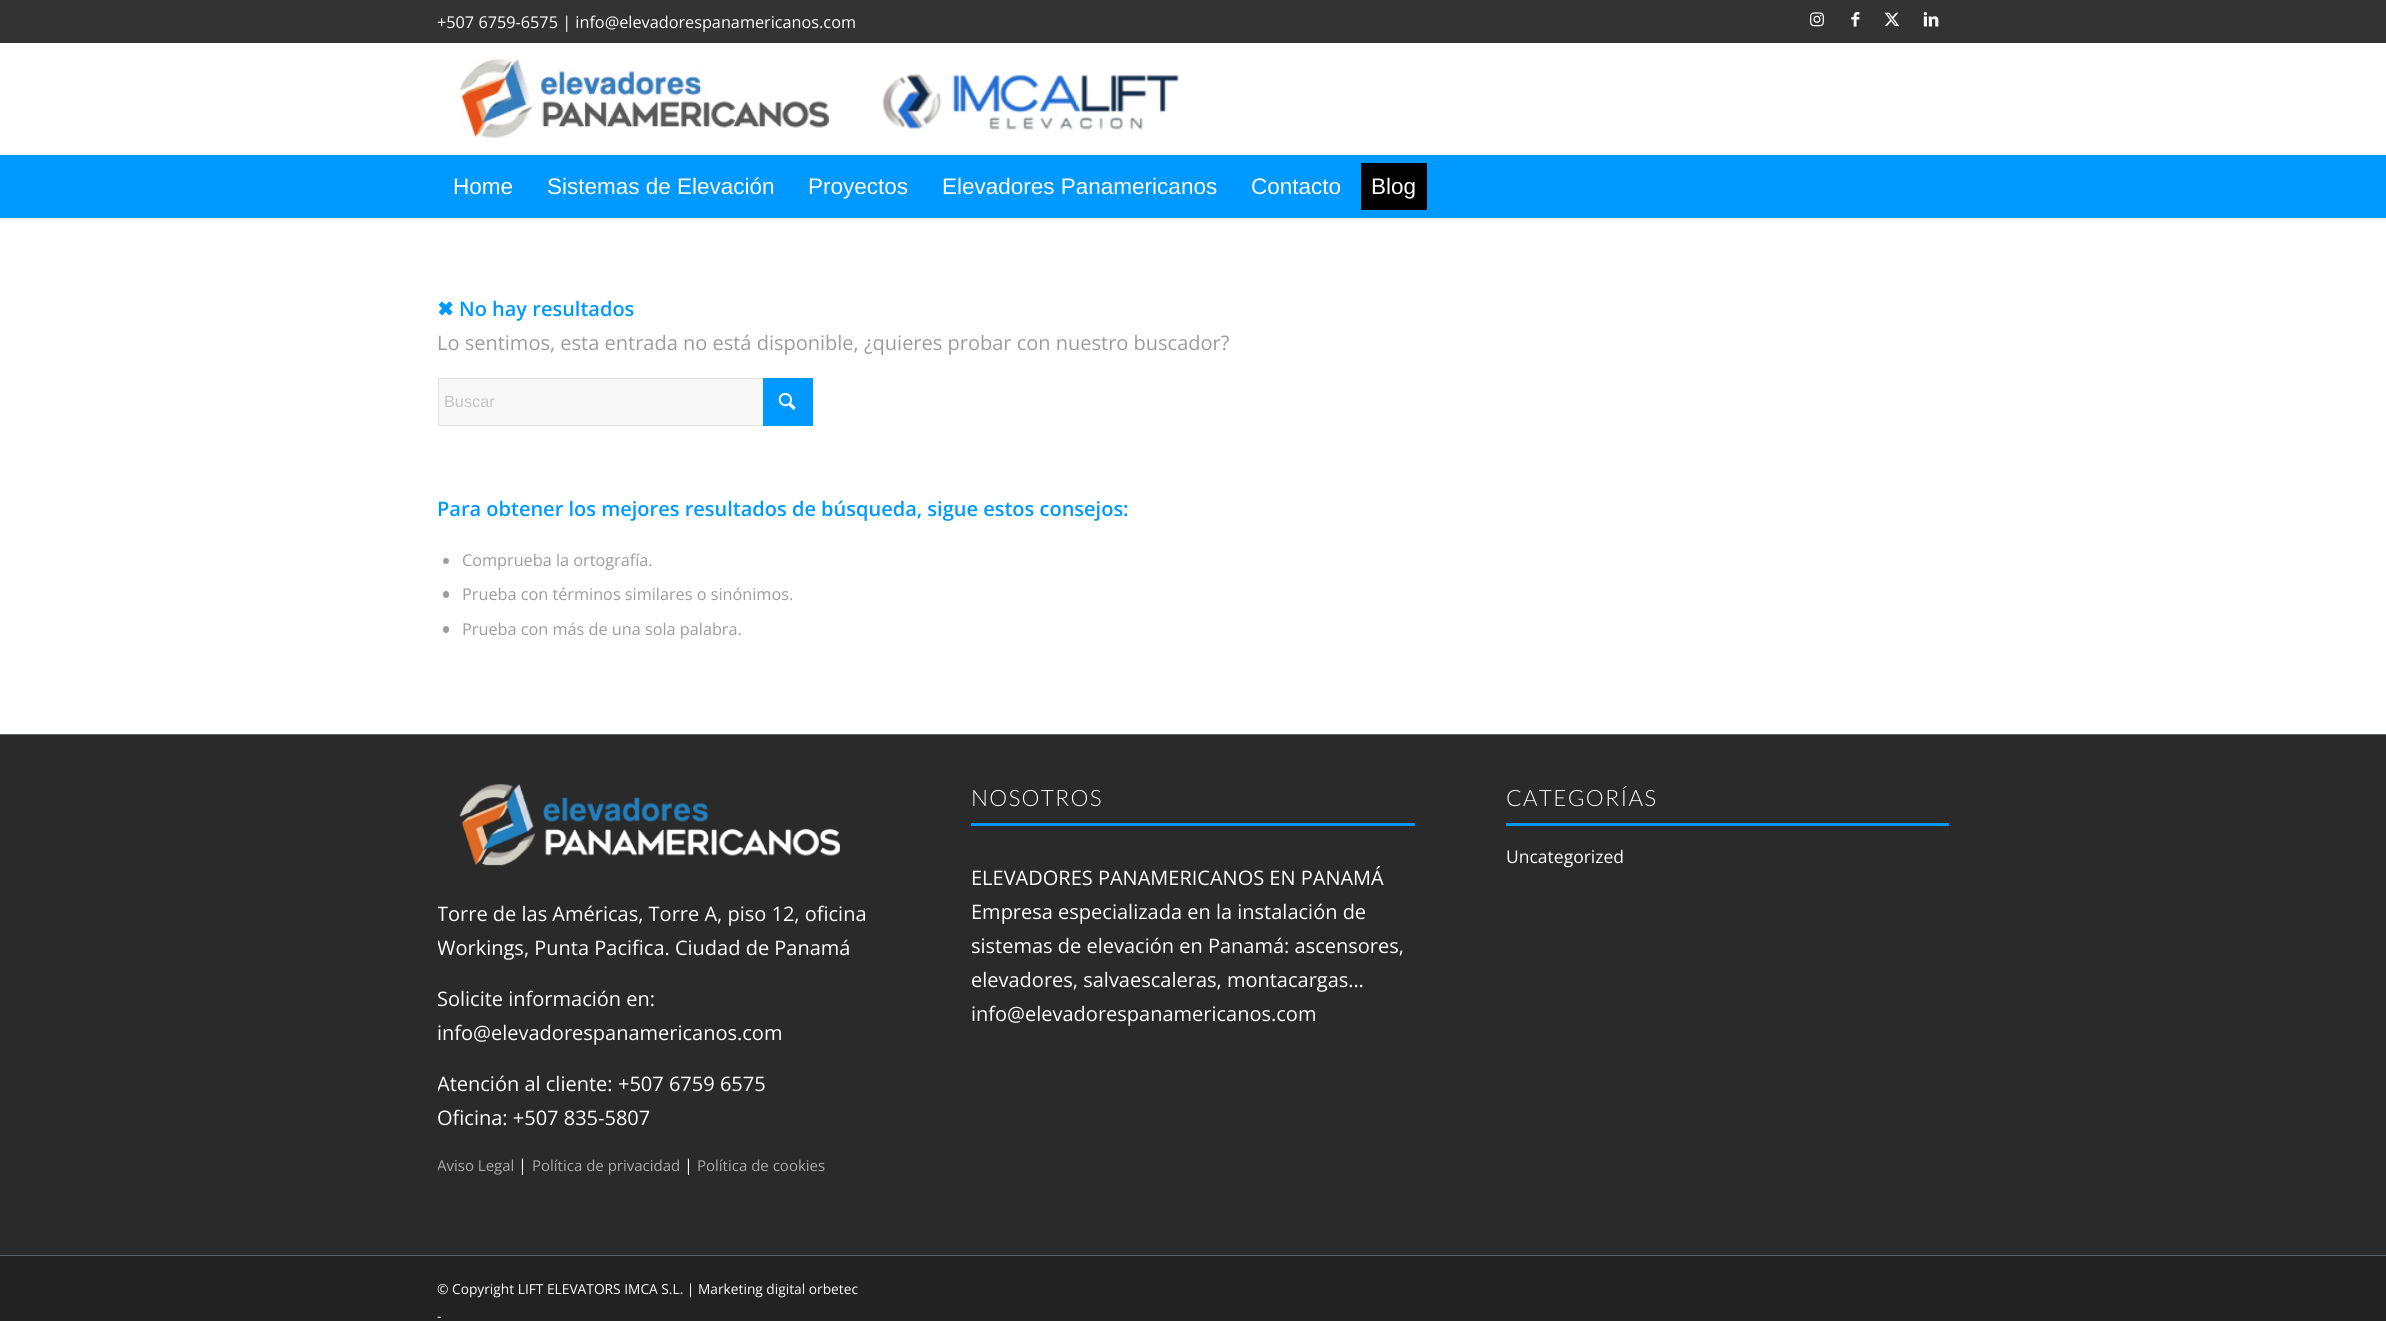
#include <cairo/cairo.h>
#include <math.h>
#include <stddef.h>


static void draw_spaced(cairo_t *cr, double x, double y, const char *s, double letter, double word) {
  cairo_move_to(cr, x, y);
  while (*s) {
    char ch[5] = {0};
    int n = 0;
    do ch[n++] = *s++; while ((*s & 0xC0) == 0x80);
    cairo_show_text(cr, ch);
    cairo_rel_move_to(cr, letter + word * (*ch == ' '), 0);
  }
}

static void rounded_rect(cairo_t *cr, double x, double y, double w, double h, double r) {
  cairo_new_sub_path(cr);
  cairo_arc(cr, x + w - r, y + h - r, r, 0, M_PI / 2);
  cairo_arc(cr, x + r, y + h - r, r, M_PI / 2, M_PI);
  cairo_arc(cr, x + r, y + r, r, M_PI, 1.5 * M_PI);
  cairo_arc(cr, x + w - r, y + r, r, 1.5 * M_PI, 2 * M_PI);
  cairo_close_path(cr);
}

static void draw_shadow(cairo_t *cr, double x, double y, double w, double h, double r, double blur, double alpha) {
  cairo_push_group_with_content(cr, CAIRO_CONTENT_ALPHA);
  cairo_set_operator(cr, CAIRO_OPERATOR_SOURCE);
  for (int i = 15; i >= -15 && fmin(w, h) + blur * i / 3 > 0; i -= 2) {
    double e = blur * i / 6;
    cairo_set_source_rgba(cr, 0, 0, 0, alpha * erfc((i - 1) / 8.5) / 2);
    rounded_rect(cr, x - e, y - e, w + 2 * e, h + 2 * e, fmax(0, fmin(r + e + blur * .6, fmin(w, h) / 2 + e)));
    cairo_fill(cr);
  }
  cairo_pattern_t *soft = cairo_pop_group(cr);
  cairo_mask(cr, soft);
  cairo_pattern_destroy(soft);
}

static void draw_image(cairo_t *cr, const char *path, double x, double y, double w, double h) {
  cairo_surface_t *image = cairo_image_surface_create_from_png(path);
  cairo_save(cr);
  cairo_set_source_surface(cr, image, x, y);
  cairo_rectangle(cr, x, y, w, h);
  cairo_fill(cr);
  cairo_restore(cr);
  cairo_surface_destroy(image);
}

static void draw(cairo_t *cr) {
  cairo_set_source_rgb(cr, 1, 1, 1);
  cairo_paint(cr);
  cairo_set_source_rgb(cr, 0, 0, 0);
  draw_shadow(cr, -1, -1, 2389, 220, 0, 1, 0.1);
  cairo_set_source_rgb(cr, 51 / 255.0, 51 / 255.0, 51 / 255.0);
  cairo_rectangle(cr, 0, 0, 2386, 43);
  cairo_fill(cr);
  draw_image(cr, "images/1.png", 1810, 12, 14, 15);
  draw_image(cr, "images/2.png", 1851, 12, 9, 15);
  draw_image(cr, "images/3.png", 1884, 12, 16, 14);
  draw_image(cr, "images/4.png", 1923, 12, 16, 15);
  cairo_set_source_rgb(cr, 1, 1, 1);
  cairo_rectangle(cr, 0, 43, 2386, 112);
  cairo_fill(cr);
  draw_image(cr, "images/5.png", 460, 58, 719, 81);
  cairo_set_source_rgb(cr, 0, 153 / 255.0, 1);
  cairo_rectangle(cr, 0, 155, 2386, 63);
  cairo_fill(cr);
  cairo_set_source_rgb(cr, 0, 0, 0);
  rounded_rect(cr, 1359.5, 161.5, 69, 50, 1);
  cairo_fill_preserve(cr);
  cairo_set_source_rgb(cr, 0, 153 / 255.0, 1);
  cairo_set_line_width(cr, 3);
  cairo_stroke(cr);
  cairo_set_source_rgb(cr, 248 / 255.0, 248 / 255.0, 248 / 255.0);
  cairo_rectangle(cr, 439, 379, 324, 46);
  cairo_fill(cr);
  cairo_rectangle(cr, 438.5, 378.5, 374, 47);
  cairo_set_source_rgb(cr, 225 / 255.0, 225 / 255.0, 225 / 255.0);
  cairo_set_line_width(cr, 1);
  cairo_stroke(cr);
  cairo_set_source_rgb(cr, 0, 153 / 255.0, 1);
  cairo_rectangle(cr, 763, 378, 50, 48);
  cairo_fill(cr);
  draw_image(cr, "images/6.png", 778, 392, 18, 18);
  cairo_set_source_rgb(cr, 156 / 255.0, 156 / 255.0, 156 / 255.0);
  cairo_arc(cr, 446, 561, 3, 0, 2 * M_PI);
  cairo_fill(cr);
  rounded_rect(cr, 443, 591, 6, 7, 3);
  cairo_fill(cr);
  rounded_rect(cr, 443, 626, 6, 7, 3);
  cairo_fill(cr);
  cairo_set_source_rgb(cr, 42 / 255.0, 42 / 255.0, 42 / 255.0);
  cairo_rectangle(cr, 0, 735, 2386, 520);
  cairo_fill(cr);
  cairo_set_source_rgb(cr, 91 / 255.0, 100 / 255.0, 107 / 255.0);
  cairo_rectangle(cr, 0, 734, 2386, 1);
  cairo_fill(cr);
  draw_image(cr, "images/7.png", 459, 784, 381, 82);
  cairo_set_source_rgb(cr, 0, 151 / 255.0, 1);
  cairo_rectangle(cr, 971, 823, 444, 3);
  cairo_fill(cr);
  cairo_rectangle(cr, 1506, 823, 443, 3);
  cairo_fill(cr);
  cairo_set_source_rgb(cr, 34 / 255.0, 34 / 255.0, 34 / 255.0);
  cairo_rectangle(cr, 0, 1256, 2386, 65);
  cairo_fill(cr);
  cairo_set_source_rgb(cr, 91 / 255.0, 100 / 255.0, 107 / 255.0);
  cairo_rectangle(cr, 0, 1255, 2386, 1);
  cairo_fill(cr);
  cairo_select_font_face(cr, "Open Sans", CAIRO_FONT_SLANT_NORMAL, CAIRO_FONT_WEIGHT_NORMAL);
  cairo_set_font_size(cr, 16.25);
  cairo_set_source_rgb(cr, 1, 1, 1);
  cairo_move_to(cr, 437, 28);
  cairo_show_text(cr, "+507 6759-6575 | info@elevadorespanamericanos.com");
  cairo_select_font_face(cr, "Liberation Sans", CAIRO_FONT_SLANT_NORMAL, CAIRO_FONT_WEIGHT_NORMAL);
  cairo_set_font_size(cr, 22.5);
  cairo_move_to(cr, 453, 194);
  cairo_show_text(cr, "Home");
  cairo_move_to(cr, 547, 194);
  cairo_show_text(cr, "Sistemas de Elevación");
  cairo_move_to(cr, 808, 194);
  cairo_show_text(cr, "Proyectos");
  cairo_move_to(cr, 942, 194);
  cairo_show_text(cr, "Elevadores Panamericanos");
  cairo_move_to(cr, 1251, 194);
  cairo_show_text(cr, "Contacto");
  cairo_move_to(cr, 1371, 194);
  cairo_show_text(cr, "Blog");
  cairo_select_font_face(cr, "DejaVu Sans", CAIRO_FONT_SLANT_NORMAL, CAIRO_FONT_WEIGHT_BOLD);
  cairo_set_font_size(cr, 20);
  cairo_set_source_rgb(cr, 0, 153 / 255.0, 1);
  cairo_move_to(cr, 437, 316);
  cairo_show_text(cr, "✖");
  cairo_select_font_face(cr, "Open Sans SemiBold", CAIRO_FONT_SLANT_NORMAL, CAIRO_FONT_WEIGHT_NORMAL);
  cairo_move_to(cr, 459, 316);
  cairo_show_text(cr, "No hay resultados");
  cairo_select_font_face(cr, "Open Sans", CAIRO_FONT_SLANT_NORMAL, CAIRO_FONT_WEIGHT_NORMAL);
  cairo_set_source_rgb(cr, 156 / 255.0, 156 / 255.0, 156 / 255.0);
  cairo_move_to(cr, 437, 350);
  cairo_show_text(cr, "Lo sentimos, esta entrada no está disponible, ¿quieres probar con nuestro buscador?");
  cairo_select_font_face(cr, "Liberation Sans", CAIRO_FONT_SLANT_NORMAL, CAIRO_FONT_WEIGHT_NORMAL);
  cairo_set_font_size(cr, 16.25);
  cairo_set_source_rgb(cr, 197 / 255.0, 197 / 255.0, 197 / 255.0);
  cairo_move_to(cr, 444, 407);
  cairo_show_text(cr, "Buscar");
  cairo_select_font_face(cr, "Open Sans SemiBold", CAIRO_FONT_SLANT_NORMAL, CAIRO_FONT_WEIGHT_NORMAL);
  cairo_set_font_size(cr, 20);
  cairo_set_source_rgb(cr, 0, 153 / 255.0, 1);
  cairo_move_to(cr, 437, 516);
  cairo_show_text(cr, "Para obtener los mejores resultados de búsqueda, sigue estos consejos:");
  cairo_select_font_face(cr, "Open Sans", CAIRO_FONT_SLANT_NORMAL, CAIRO_FONT_WEIGHT_NORMAL);
  cairo_set_font_size(cr, 16.25);
  cairo_set_source_rgb(cr, 156 / 255.0, 156 / 255.0, 156 / 255.0);
  cairo_move_to(cr, 462, 566);
  cairo_show_text(cr, "Comprueba la ortografía.");
  cairo_move_to(cr, 462, 600);
  cairo_show_text(cr, "Prueba con términos similares o sinónimos.");
  cairo_move_to(cr, 462, 635);
  cairo_show_text(cr, "Prueba con más de una sola palabra.");
  cairo_save(cr);
  cairo_rectangle(cr, 438, 880, 442, 299);
  cairo_clip(cr);
  cairo_set_font_size(cr, 20);
  cairo_set_source_rgb(cr, 1, 1, 1);
  cairo_move_to(cr, 437, 921);
  cairo_show_text(cr, "Torre de las Américas, Torre A, piso 12, oficina");
  cairo_move_to(cr, 437, 955);
  cairo_show_text(cr, "Workings, Punta Pacifica. Ciudad de Panamá");
  cairo_restore(cr);
  cairo_set_font_size(cr, 20);
  cairo_set_source_rgb(cr, 1, 1, 1);
  cairo_move_to(cr, 437, 1006);
  cairo_show_text(cr, "Solicite información en:");
  cairo_move_to(cr, 437, 1040);
  cairo_show_text(cr, "info@elevadorespanamericanos.com");
  cairo_save(cr);
  cairo_rectangle(cr, 438, 880, 442, 299);
  cairo_clip(cr);
  cairo_move_to(cr, 437, 1091);
  cairo_show_text(cr, "Atención al cliente:");
  cairo_restore(cr);
  cairo_move_to(cr, 618, 1091);
  cairo_show_text(cr, "+507 6759 6575");
  cairo_move_to(cr, 437, 1125);
  cairo_show_text(cr, "Oficina: +507 835-5807");
  cairo_save(cr);
  cairo_rectangle(cr, 438, 880, 442, 299);
  cairo_clip(cr);
  cairo_set_font_size(cr, 15);
  cairo_set_source_rgb(cr, 170 / 255.0, 170 / 255.0, 170 / 255.0);
  cairo_move_to(cr, 437, 1171);
  cairo_show_text(cr, "Aviso Legal");
  cairo_restore(cr);
  cairo_set_font_size(cr, 16.25);
  cairo_move_to(cr, 518, 1171);
  cairo_show_text(cr, "|");
  cairo_set_font_size(cr, 15);
  cairo_set_source_rgb(cr, 170 / 255.0, 170 / 255.0, 170 / 255.0);
  cairo_move_to(cr, 532, 1171);
  cairo_show_text(cr, "Política de privacidad");
  cairo_set_font_size(cr, 16.25);
  cairo_set_source_rgb(cr, 1, 1, 1);
  cairo_move_to(cr, 684, 1171);
  cairo_show_text(cr, "|");
  cairo_set_font_size(cr, 15);
  cairo_set_source_rgb(cr, 170 / 255.0, 170 / 255.0, 170 / 255.0);
  cairo_move_to(cr, 697, 1171);
  cairo_show_text(cr, "Política de cookies");
  cairo_select_font_face(cr, "Lato Light", CAIRO_FONT_SLANT_NORMAL, CAIRO_FONT_WEIGHT_NORMAL);
  cairo_set_font_size(cr, 22.5);
  cairo_set_source_rgb(cr, 1, 1, 1);
  draw_spaced(cr, 971, 806, "NOSOTROS", 1.25, 0);
  cairo_select_font_face(cr, "Open Sans", CAIRO_FONT_SLANT_NORMAL, CAIRO_FONT_WEIGHT_NORMAL);
  cairo_set_font_size(cr, 20);
  cairo_move_to(cr, 971, 885);
  cairo_show_text(cr, "ELEVADORES PANAMERICANOS EN PANAMÁ");
  cairo_move_to(cr, 971, 919);
  cairo_show_text(cr, "Empresa especializada en la instalación de");
  cairo_move_to(cr, 971, 953);
  cairo_show_text(cr, "sistemas de elevación en Panamá: ascensores,");
  cairo_move_to(cr, 971, 987);
  cairo_show_text(cr, "elevadores, salvaescaleras, montacargas…");
  cairo_move_to(cr, 971, 1021);
  cairo_show_text(cr, "info@elevadorespanamericanos.com");
  cairo_select_font_face(cr, "Lato Light", CAIRO_FONT_SLANT_NORMAL, CAIRO_FONT_WEIGHT_NORMAL);
  cairo_set_font_size(cr, 22.5);
  draw_spaced(cr, 1506, 806, "CATEGORÍAS", 1.25, 0);
  cairo_select_font_face(cr, "Open Sans", CAIRO_FONT_SLANT_NORMAL, CAIRO_FONT_WEIGHT_NORMAL);
  cairo_set_font_size(cr, 17.5);
  cairo_move_to(cr, 1506, 863);
  cairo_show_text(cr, "Uncategorized");
  cairo_set_font_size(cr, 13.75);
  cairo_move_to(cr, 437, 1294);
  cairo_show_text(cr, "© Copyright LIFT ELEVATORS IMCA S.L. | Marketing digital orbetec");
  cairo_move_to(cr, 437, 1321);
  cairo_show_text(cr, "-");
}

int main(void) {
  cairo_surface_t *surface = cairo_image_surface_create(CAIRO_FORMAT_RGB24, 2386, 1321);
  cairo_t *cr = cairo_create(surface);
  cairo_font_options_t *options = cairo_font_options_create();
  cairo_font_options_set_hint_metrics(options, CAIRO_HINT_METRICS_OFF);
  cairo_font_options_set_hint_style(options, CAIRO_HINT_STYLE_NONE);
  cairo_set_font_options(cr, options);
  cairo_set_miter_limit(cr, 4);
  draw(cr);
  cairo_surface_write_to_png(surface, "out.png");
  cairo_font_options_destroy(options);
  cairo_destroy(cr);
  cairo_surface_destroy(surface);
  return 0;
}
